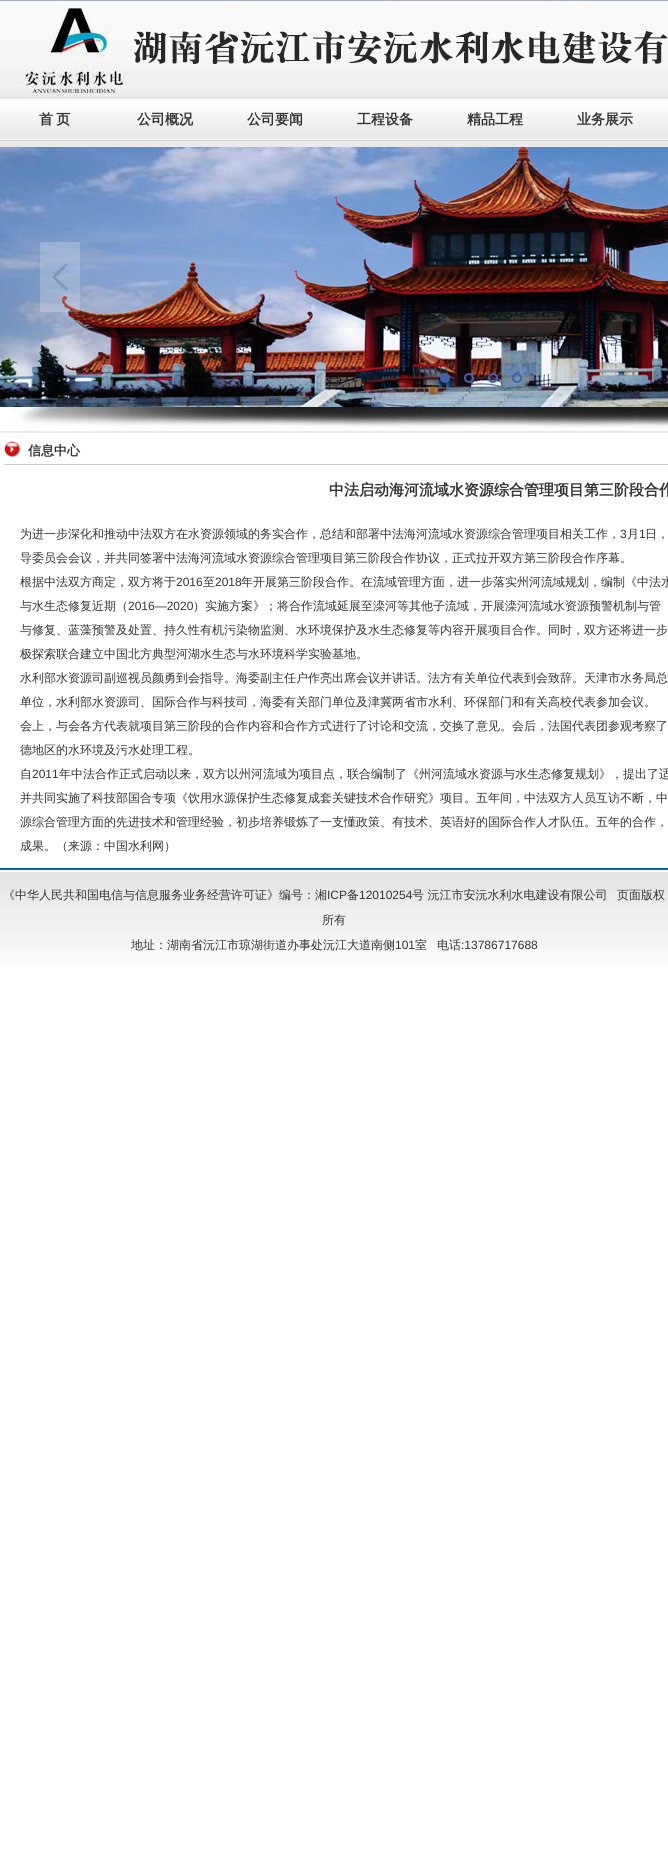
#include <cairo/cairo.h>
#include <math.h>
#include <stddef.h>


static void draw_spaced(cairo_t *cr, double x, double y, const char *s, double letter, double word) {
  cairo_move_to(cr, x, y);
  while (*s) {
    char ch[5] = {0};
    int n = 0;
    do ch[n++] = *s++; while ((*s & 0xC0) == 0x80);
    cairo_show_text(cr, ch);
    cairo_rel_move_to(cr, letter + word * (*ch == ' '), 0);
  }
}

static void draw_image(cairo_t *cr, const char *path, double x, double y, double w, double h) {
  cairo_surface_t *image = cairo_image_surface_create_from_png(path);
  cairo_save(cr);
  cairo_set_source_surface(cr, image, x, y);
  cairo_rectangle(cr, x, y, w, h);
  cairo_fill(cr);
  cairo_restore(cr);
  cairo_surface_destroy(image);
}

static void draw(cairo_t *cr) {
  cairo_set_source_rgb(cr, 1, 1, 1);
  cairo_paint(cr);
  draw_image(cr, "images/1.png", 0, 98, 668, 335);
  draw_image(cr, "images/2.png", 0, 0, 668, 98);
  draw_image(cr, "images/3.png", 0, 147, 668, 260);
  cairo_set_source_rgba(cr, 1, 1, 1, 0.2);
  cairo_rectangle(cr, 40, 242, 40, 70);
  cairo_fill(cr);
  draw_image(cr, "images/4.png", 52, 263, 16, 28);
  cairo_set_source_rgb(cr, 62 / 255.0, 97 / 255.0, 178 / 255.0);
  cairo_arc(cr, 445, 378, 4, 0, 2 * M_PI);
  cairo_fill_preserve(cr);
  cairo_stroke(cr);
  cairo_arc(cr, 469, 378, 4, 0, 2 * M_PI);
  cairo_stroke(cr);
  cairo_arc(cr, 493, 378, 4, 0, 2 * M_PI);
  cairo_stroke(cr);
  cairo_arc(cr, 517, 378, 4, 0, 2 * M_PI);
  cairo_stroke(cr);
  draw_image(cr, "images/5.png", 0, 407, 668, 24);
  draw_image(cr, "images/6.png", 0, 433, 668, 32);
  draw_image(cr, "images/7.png", 0, 868, 668, 97);
  cairo_select_font_face(cr, "WenQuanYi Zen Hei", CAIRO_FONT_SLANT_NORMAL, CAIRO_FONT_WEIGHT_BOLD);
  cairo_set_font_size(cr, 14);
  cairo_set_source_rgb(cr, 51 / 255.0, 51 / 255.0, 51 / 255.0);
  draw_spaced(cr, 39, 124, "首 页", 0, -1);
  cairo_move_to(cr, 137, 124);
  cairo_show_text(cr, "公司概况");
  cairo_move_to(cr, 247, 124);
  cairo_show_text(cr, "公司要闻");
  cairo_move_to(cr, 357, 124);
  cairo_show_text(cr, "工程设备");
  cairo_move_to(cr, 467, 124);
  cairo_show_text(cr, "精品工程");
  cairo_move_to(cr, 577, 124);
  cairo_show_text(cr, "业务展示");
  cairo_set_font_size(cr, 13);
  cairo_move_to(cr, 28, 455);
  cairo_show_text(cr, "信息中心");
  cairo_set_font_size(cr, 15);
  cairo_move_to(cr, 329, 495);
  cairo_show_text(cr, "中法启动海河流域水资源综合管理项目第三阶段合作");
  cairo_select_font_face(cr, "WenQuanYi Zen Hei Medium", CAIRO_FONT_SLANT_NORMAL, CAIRO_FONT_WEIGHT_NORMAL);
  cairo_set_font_size(cr, 12);
  cairo_move_to(cr, 20, 538);
  cairo_show_text(cr, "为进一步深化和推动中法双方在水资源领域的务实合作，总结和部署中法海河流域水资源综合管理项目相关工作，");
  cairo_select_font_face(cr, "Liberation Sans", CAIRO_FONT_SLANT_NORMAL, CAIRO_FONT_WEIGHT_NORMAL);
  cairo_move_to(cr, 620, 538);
  cairo_show_text(cr, "3");
  cairo_select_font_face(cr, "WenQuanYi Zen Hei Medium", CAIRO_FONT_SLANT_NORMAL, CAIRO_FONT_WEIGHT_NORMAL);
  cairo_move_to(cr, 627, 538);
  cairo_show_text(cr, "月");
  cairo_select_font_face(cr, "Liberation Sans", CAIRO_FONT_SLANT_NORMAL, CAIRO_FONT_WEIGHT_NORMAL);
  cairo_move_to(cr, 639, 538);
  cairo_show_text(cr, "1");
  cairo_select_font_face(cr, "WenQuanYi Zen Hei Medium", CAIRO_FONT_SLANT_NORMAL, CAIRO_FONT_WEIGHT_NORMAL);
  cairo_move_to(cr, 645, 538);
  cairo_show_text(cr, "日，");
  cairo_move_to(cr, 20, 562);
  cairo_show_text(cr, "导委员会会议，并共同签署中法海河流域水资源综合管理项目第三阶段合作协议，正式拉开双方第三阶段合作序幕。");
  cairo_move_to(cr, 20, 586);
  cairo_show_text(cr, "根据中法双方商定，双方将于");
  cairo_select_font_face(cr, "Liberation Sans", CAIRO_FONT_SLANT_NORMAL, CAIRO_FONT_WEIGHT_NORMAL);
  cairo_move_to(cr, 176, 586);
  cairo_show_text(cr, "2016");
  cairo_select_font_face(cr, "WenQuanYi Zen Hei Medium", CAIRO_FONT_SLANT_NORMAL, CAIRO_FONT_WEIGHT_NORMAL);
  cairo_move_to(cr, 203, 586);
  cairo_show_text(cr, "至");
  cairo_select_font_face(cr, "Liberation Sans", CAIRO_FONT_SLANT_NORMAL, CAIRO_FONT_WEIGHT_NORMAL);
  cairo_move_to(cr, 215, 586);
  cairo_show_text(cr, "2018");
  cairo_select_font_face(cr, "WenQuanYi Zen Hei Medium", CAIRO_FONT_SLANT_NORMAL, CAIRO_FONT_WEIGHT_NORMAL);
  cairo_move_to(cr, 241, 586);
  cairo_show_text(cr, "年开展第三阶段合作。在流域管理方面，进一步落实州河流域规划，编制《中法水");
  cairo_move_to(cr, 20, 610);
  cairo_show_text(cr, "与水生态修复近期（");
  cairo_select_font_face(cr, "Liberation Sans", CAIRO_FONT_SLANT_NORMAL, CAIRO_FONT_WEIGHT_NORMAL);
  cairo_move_to(cr, 128, 610);
  cairo_show_text(cr, "2016—2020");
  cairo_select_font_face(cr, "WenQuanYi Zen Hei Medium", CAIRO_FONT_SLANT_NORMAL, CAIRO_FONT_WEIGHT_NORMAL);
  cairo_move_to(cr, 193, 610);
  cairo_show_text(cr, "）实施方案》；将合作流域延展至滦河等其他子流域，开展滦河流域水资源预警机制与管");
  cairo_move_to(cr, 20, 634);
  cairo_show_text(cr, "与修复、蓝藻预警及处置、持久性有机污染物监测、水环境保护及水生态修复等内容开展项目合作。同时，双方还将进一步");
  cairo_move_to(cr, 20, 658);
  cairo_show_text(cr, "极探索联合建立中国北方典型河湖水生态与水环境科学实验基地。");
  cairo_move_to(cr, 20, 682);
  cairo_show_text(cr, "水利部水资源司副巡视员颜勇到会指导。海委副主任户作亮出席会议并讲话。法方有关单位代表到会致辞。天津市水务局总");
  cairo_move_to(cr, 20, 706);
  cairo_show_text(cr, "单位，水利部水资源司、国际合作与科技司，海委有关部门单位及津冀两省市水利、环保部门和有关高校代表参加会议。");
  cairo_move_to(cr, 20, 730);
  cairo_show_text(cr, "会上，与会各方代表就项目第三阶段的合作内容和合作方式进行了讨论和交流，交换了意见。会后，法国代表团参观考察了");
  cairo_move_to(cr, 20, 754);
  cairo_show_text(cr, "德地区的水环境及污水处理工程。");
  cairo_move_to(cr, 20, 778);
  cairo_show_text(cr, "自");
  cairo_select_font_face(cr, "Liberation Sans", CAIRO_FONT_SLANT_NORMAL, CAIRO_FONT_WEIGHT_NORMAL);
  cairo_move_to(cr, 32, 778);
  cairo_show_text(cr, "2011");
  cairo_select_font_face(cr, "WenQuanYi Zen Hei Medium", CAIRO_FONT_SLANT_NORMAL, CAIRO_FONT_WEIGHT_NORMAL);
  cairo_move_to(cr, 59, 778);
  cairo_show_text(cr, "年中法合作正式启动以来，双方以州河流域为项目点，联合编制了《州河流域水资源与水生态修复规划》，提出了适");
  cairo_move_to(cr, 20, 802);
  cairo_show_text(cr, "并共同实施了科技部国合专项《饮用水源保护生态修复成套关键技术合作研究》项目。五年间，中法双方人员互访不断，中");
  cairo_move_to(cr, 20, 826);
  cairo_show_text(cr, "源综合管理方面的先进技术和管理经验，初步培养锻炼了一支懂政策、有技术、英语好的国际合作人才队伍。五年的合作，");
  cairo_move_to(cr, 20, 850);
  cairo_show_text(cr, "成果。（来源：中国水利网）");
  cairo_move_to(cr, 3, 899);
  cairo_show_text(cr, "《中华人民共和国电信与信息服务业务经营许可证》编号：湘");
  cairo_select_font_face(cr, "Liberation Sans", CAIRO_FONT_SLANT_NORMAL, CAIRO_FONT_WEIGHT_NORMAL);
  cairo_move_to(cr, 327, 899);
  cairo_show_text(cr, "ICP");
  cairo_select_font_face(cr, "WenQuanYi Zen Hei Medium", CAIRO_FONT_SLANT_NORMAL, CAIRO_FONT_WEIGHT_NORMAL);
  cairo_move_to(cr, 347, 899);
  cairo_show_text(cr, "备");
  cairo_select_font_face(cr, "Liberation Sans", CAIRO_FONT_SLANT_NORMAL, CAIRO_FONT_WEIGHT_NORMAL);
  cairo_move_to(cr, 359, 899);
  cairo_show_text(cr, "12010254");
  cairo_select_font_face(cr, "WenQuanYi Zen Hei Medium", CAIRO_FONT_SLANT_NORMAL, CAIRO_FONT_WEIGHT_NORMAL);
  cairo_move_to(cr, 412, 899);
  cairo_show_text(cr, "号 沅江市安沅水利水电建设有限公司");
  cairo_move_to(cr, 617, 899);
  cairo_show_text(cr, "页面版权");
  cairo_move_to(cr, 322, 924);
  cairo_show_text(cr, "所有");
  cairo_move_to(cr, 131, 949);
  cairo_show_text(cr, "地址：湖南省沅江市琼湖街道办事处沅江大道南侧");
  cairo_select_font_face(cr, "Liberation Sans", CAIRO_FONT_SLANT_NORMAL, CAIRO_FONT_WEIGHT_NORMAL);
  cairo_move_to(cr, 395, 949);
  cairo_show_text(cr, "101");
  cairo_select_font_face(cr, "WenQuanYi Zen Hei Medium", CAIRO_FONT_SLANT_NORMAL, CAIRO_FONT_WEIGHT_NORMAL);
  cairo_move_to(cr, 415, 949);
  cairo_show_text(cr, "室");
  cairo_move_to(cr, 437, 949);
  cairo_show_text(cr, "电话");
  cairo_select_font_face(cr, "Liberation Sans", CAIRO_FONT_SLANT_NORMAL, CAIRO_FONT_WEIGHT_NORMAL);
  cairo_move_to(cr, 461, 949);
  cairo_show_text(cr, ":13786717688");
}

int main(void) {
  cairo_surface_t *surface = cairo_image_surface_create(CAIRO_FORMAT_RGB24, 668, 1867);
  cairo_t *cr = cairo_create(surface);
  cairo_font_options_t *options = cairo_font_options_create();
  cairo_font_options_set_hint_metrics(options, CAIRO_HINT_METRICS_OFF);
  cairo_font_options_set_hint_style(options, CAIRO_HINT_STYLE_NONE);
  cairo_set_font_options(cr, options);
  cairo_set_miter_limit(cr, 4);
  draw(cr);
  cairo_surface_write_to_png(surface, "out.png");
  cairo_font_options_destroy(options);
  cairo_destroy(cr);
  cairo_surface_destroy(surface);
  return 0;
}
